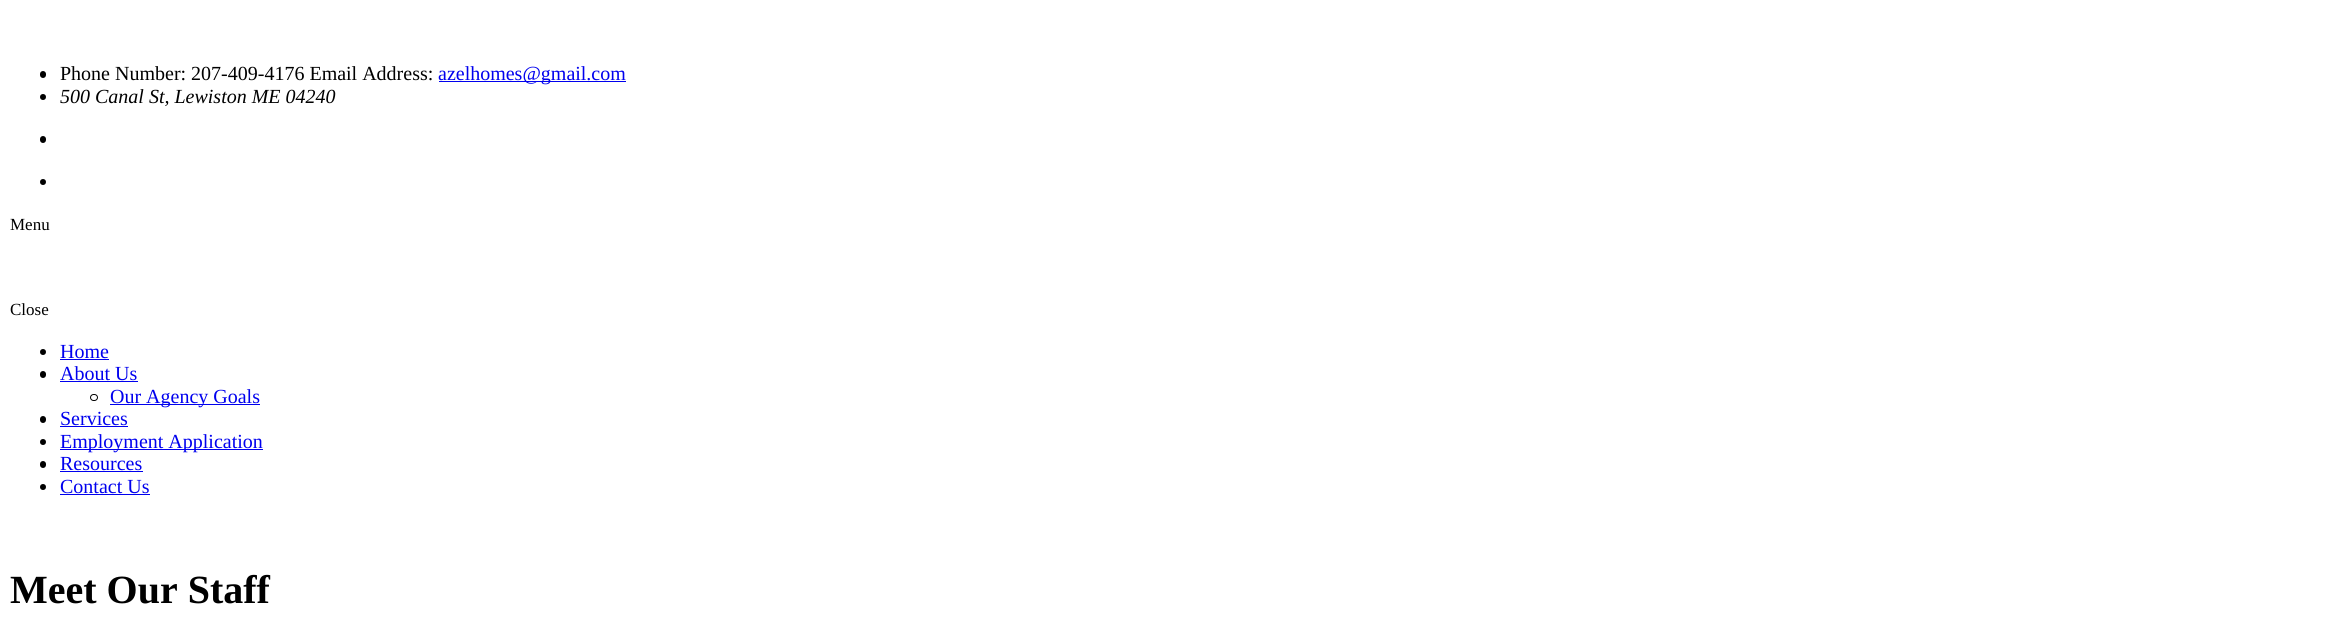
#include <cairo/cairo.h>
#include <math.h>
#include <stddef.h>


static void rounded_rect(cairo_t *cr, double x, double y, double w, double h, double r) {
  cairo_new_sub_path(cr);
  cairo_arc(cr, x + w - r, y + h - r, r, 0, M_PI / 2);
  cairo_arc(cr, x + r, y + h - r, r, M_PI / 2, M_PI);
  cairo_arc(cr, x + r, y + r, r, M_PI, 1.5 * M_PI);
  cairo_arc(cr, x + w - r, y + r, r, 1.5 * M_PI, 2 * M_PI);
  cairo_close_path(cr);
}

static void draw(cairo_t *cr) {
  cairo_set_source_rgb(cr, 1, 1, 1);
  cairo_paint(cr);
  cairo_set_source_rgb(cr, 0, 0, 0);
  rounded_rect(cr, 40, 71, 6, 7, 3);
  cairo_fill(cr);
  cairo_set_source_rgb(cr, 0, 0, 238 / 255.0);
  cairo_rectangle(cr, 439, 81, 187, 1);
  cairo_fill(cr);
  cairo_set_source_rgb(cr, 0, 0, 0);
  cairo_arc(cr, 43, 97, 3, 0, 2 * M_PI);
  cairo_fill(cr);
  rounded_rect(cr, 40, 136, 6, 7, 3);
  cairo_fill(cr);
  cairo_arc(cr, 43, 182, 3, 0, 2 * M_PI);
  cairo_fill(cr);
  cairo_arc(cr, 43, 352, 3, 0, 2 * M_PI);
  cairo_fill(cr);
  cairo_set_source_rgb(cr, 0, 0, 238 / 255.0);
  cairo_rectangle(cr, 60, 359, 49, 1);
  cairo_fill(cr);
  cairo_set_source_rgb(cr, 0, 0, 0);
  rounded_rect(cr, 40, 371, 6, 7, 3);
  cairo_fill(cr);
  cairo_set_source_rgb(cr, 0, 0, 238 / 255.0);
  cairo_rectangle(cr, 60, 381, 78, 1);
  cairo_fill(cr);
  rounded_rect(cr, 90.5, 394.5, 7, 6, 3);
  cairo_set_source_rgb(cr, 0, 0, 0);
  cairo_set_line_width(cr, 1);
  cairo_stroke(cr);
  cairo_set_source_rgb(cr, 0, 0, 238 / 255.0);
  cairo_rectangle(cr, 110, 404, 150, 1);
  cairo_fill(cr);
  cairo_set_source_rgb(cr, 0, 0, 0);
  rounded_rect(cr, 40, 416, 6, 7, 3);
  cairo_fill(cr);
  cairo_set_source_rgb(cr, 0, 0, 238 / 255.0);
  cairo_rectangle(cr, 60, 426, 68, 1);
  cairo_fill(cr);
  cairo_set_source_rgb(cr, 0, 0, 0);
  cairo_arc(cr, 43, 442, 3, 0, 2 * M_PI);
  cairo_fill(cr);
  cairo_set_source_rgb(cr, 0, 0, 238 / 255.0);
  cairo_rectangle(cr, 60, 449, 203, 1);
  cairo_fill(cr);
  cairo_set_source_rgb(cr, 0, 0, 0);
  rounded_rect(cr, 40, 461, 6, 7, 3);
  cairo_fill(cr);
  cairo_set_source_rgb(cr, 0, 0, 238 / 255.0);
  cairo_rectangle(cr, 60, 471, 83, 1);
  cairo_fill(cr);
  cairo_set_source_rgb(cr, 0, 0, 0);
  cairo_arc(cr, 43, 487, 3, 0, 2 * M_PI);
  cairo_fill(cr);
  cairo_set_source_rgb(cr, 0, 0, 238 / 255.0);
  cairo_rectangle(cr, 60, 494, 90, 1);
  cairo_fill(cr);
  cairo_select_font_face(cr, "Liberation Serif", CAIRO_FONT_SLANT_NORMAL, CAIRO_FONT_WEIGHT_NORMAL);
  cairo_set_font_size(cr, 20);
  cairo_set_source_rgb(cr, 0, 0, 0);
  cairo_move_to(cr, 60, 80);
  cairo_show_text(cr, "Phone Number: 207-409-4176 Email Address:");
  cairo_set_source_rgb(cr, 0, 0, 238 / 255.0);
  cairo_move_to(cr, 438, 80);
  cairo_show_text(cr, "azelhomes@gmail.com");
  cairo_select_font_face(cr, "Liberation Serif", CAIRO_FONT_SLANT_ITALIC, CAIRO_FONT_WEIGHT_NORMAL);
  cairo_set_source_rgb(cr, 0, 0, 0);
  cairo_move_to(cr, 60, 103);
  cairo_show_text(cr, "500 Canal St, Lewiston ME 04240");
  cairo_select_font_face(cr, "Liberation Serif", CAIRO_FONT_SLANT_NORMAL, CAIRO_FONT_WEIGHT_NORMAL);
  cairo_set_font_size(cr, 17);
  cairo_move_to(cr, 10, 230);
  cairo_show_text(cr, "Menu");
  cairo_move_to(cr, 10, 315);
  cairo_show_text(cr, "Close");
  cairo_set_font_size(cr, 20);
  cairo_set_source_rgb(cr, 0, 0, 238 / 255.0);
  cairo_move_to(cr, 60, 358);
  cairo_show_text(cr, "Home");
  cairo_move_to(cr, 60, 380);
  cairo_show_text(cr, "About Us");
  cairo_move_to(cr, 110, 403);
  cairo_show_text(cr, "Our Agency Goals");
  cairo_move_to(cr, 60, 425);
  cairo_show_text(cr, "Services");
  cairo_move_to(cr, 60, 448);
  cairo_show_text(cr, "Employment Application");
  cairo_move_to(cr, 60, 470);
  cairo_show_text(cr, "Resources");
  cairo_move_to(cr, 60, 493);
  cairo_show_text(cr, "Contact Us");
  cairo_select_font_face(cr, "Liberation Serif", CAIRO_FONT_SLANT_NORMAL, CAIRO_FONT_WEIGHT_BOLD);
  cairo_set_font_size(cr, 40);
  cairo_set_source_rgb(cr, 0, 0, 0);
  cairo_move_to(cr, 10, 603);
  cairo_show_text(cr, "Meet Our Staff");
}

int main(void) {
  cairo_surface_t *surface = cairo_image_surface_create(CAIRO_FORMAT_RGB24, 2352, 637);
  cairo_t *cr = cairo_create(surface);
  cairo_font_options_t *options = cairo_font_options_create();
  cairo_font_options_set_hint_metrics(options, CAIRO_HINT_METRICS_OFF);
  cairo_font_options_set_hint_style(options, CAIRO_HINT_STYLE_NONE);
  cairo_set_font_options(cr, options);
  cairo_set_miter_limit(cr, 4);
  draw(cr);
  cairo_surface_write_to_png(surface, "out.png");
  cairo_font_options_destroy(options);
  cairo_destroy(cr);
  cairo_surface_destroy(surface);
  return 0;
}
